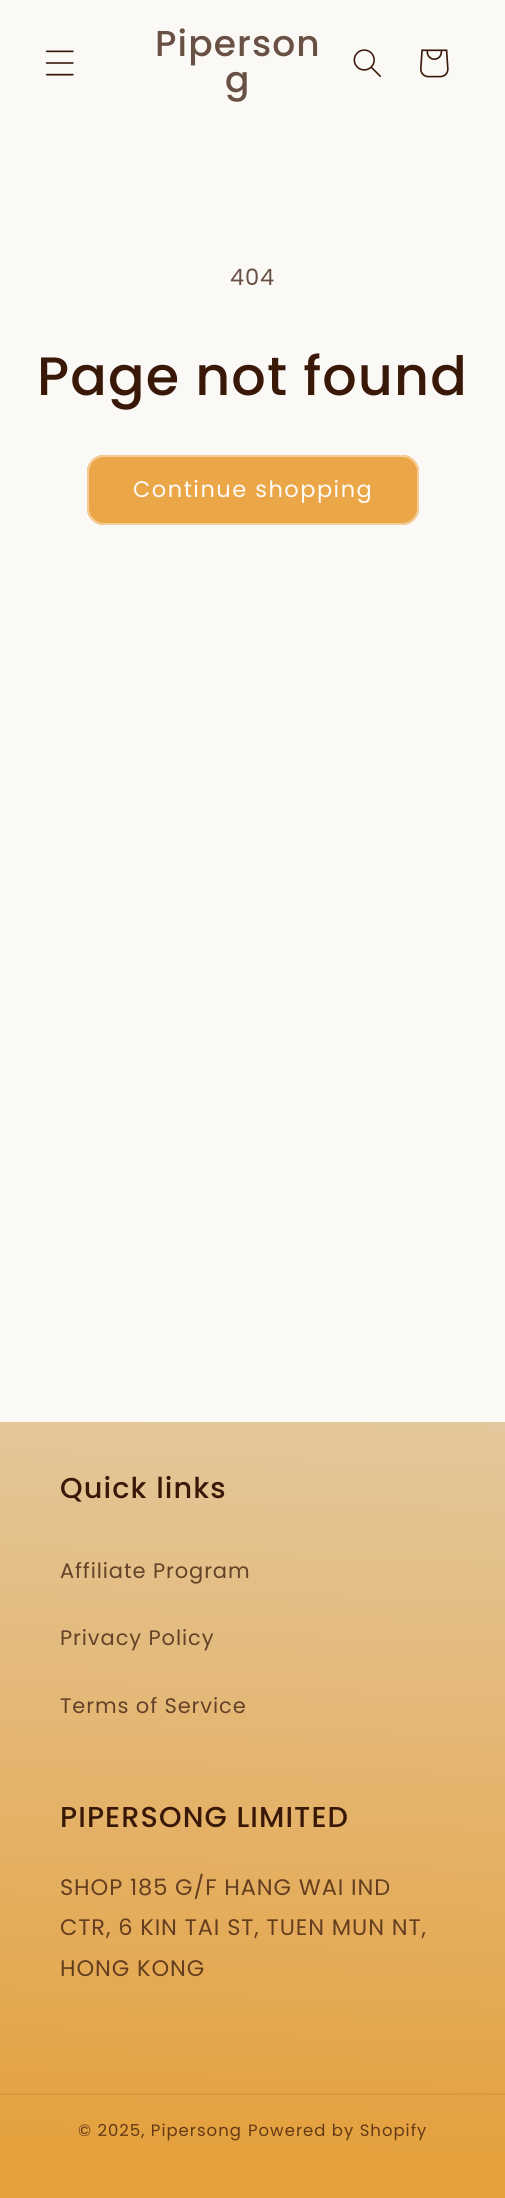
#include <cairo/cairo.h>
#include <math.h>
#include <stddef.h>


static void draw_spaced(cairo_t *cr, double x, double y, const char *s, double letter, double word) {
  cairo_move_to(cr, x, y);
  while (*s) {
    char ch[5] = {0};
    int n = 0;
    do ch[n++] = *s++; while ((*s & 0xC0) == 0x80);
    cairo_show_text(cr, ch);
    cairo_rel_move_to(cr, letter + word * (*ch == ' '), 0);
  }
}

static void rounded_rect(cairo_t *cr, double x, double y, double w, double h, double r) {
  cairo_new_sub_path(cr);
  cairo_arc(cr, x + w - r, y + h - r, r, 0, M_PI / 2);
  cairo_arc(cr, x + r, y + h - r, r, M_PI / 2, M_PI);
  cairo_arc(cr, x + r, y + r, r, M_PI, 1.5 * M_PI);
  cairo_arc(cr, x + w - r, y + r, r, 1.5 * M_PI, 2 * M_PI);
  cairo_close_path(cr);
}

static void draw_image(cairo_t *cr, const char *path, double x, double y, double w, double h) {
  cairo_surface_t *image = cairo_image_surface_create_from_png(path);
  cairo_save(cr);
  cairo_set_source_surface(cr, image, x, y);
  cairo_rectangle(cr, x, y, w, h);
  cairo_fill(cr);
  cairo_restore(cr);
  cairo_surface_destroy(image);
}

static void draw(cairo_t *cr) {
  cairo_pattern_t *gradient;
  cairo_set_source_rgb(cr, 250 / 255.0, 249 / 255.0, 246 / 255.0);
  cairo_paint(cr);
  draw_image(cr, "images/1.png", 45, 50, 29, 26);
  draw_image(cr, "images/2.png", 353, 49, 28, 28);
  draw_image(cr, "images/3.png", 420, 49, 29, 29);
  cairo_set_source_rgb(cr, 235 / 255.0, 166 / 255.0, 71 / 255.0);
  rounded_rect(cr, 87, 455, 332, 70, 17);
  cairo_fill(cr);
  rounded_rect(cr, 88, 456, 330, 68, 16);
  cairo_stroke(cr);
  rounded_rect(cr, 88, 456, 330, 68, 16);
  cairo_set_source_rgba(cr, 253 / 255.0, 251 / 255.0, 247 / 255.0, 0.45);
  cairo_stroke(cr);
  gradient = cairo_pattern_create_linear(291, -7.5, 214, 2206);
  cairo_pattern_add_color_stop_rgba(gradient, 0, 1, 1, 1, 1);
  cairo_pattern_add_color_stop_rgba(gradient, 0.59, 228 / 255.0, 205 / 255.0, 171 / 255.0, 1);
  cairo_pattern_add_color_stop_rgba(gradient, 0.98, 228 / 255.0, 160 / 255.0, 60 / 255.0, 1);
  cairo_set_source(cr, gradient);
  cairo_pattern_destroy(gradient);
  cairo_rectangle(cr, 0, 1422, 505, 776);
  cairo_fill(cr);
  cairo_set_source_rgb(cr, 214 / 255.0, 152 / 255.0, 64 / 255.0);
  cairo_rectangle(cr, 0, 2093, 505, 2);
  cairo_fill(cr);
  cairo_select_font_face(cr, "Poppins Medium", CAIRO_FONT_SLANT_NORMAL, CAIRO_FONT_WEIGHT_NORMAL);
  cairo_set_font_size(cr, 36);
  cairo_set_source_rgb(cr, 105 / 255.0, 80 / 255.0, 68 / 255.0);
  draw_spaced(cr, 155, 56, "Piperson", 1.1, 0);
  draw_spaced(cr, 225, 92, "g", 1.1, 0);
  cairo_select_font_face(cr, "Poppins", CAIRO_FONT_SLANT_NORMAL, CAIRO_FONT_WEIGHT_NORMAL);
  cairo_set_font_size(cr, 22.5);
  draw_spaced(cr, 230, 285, "404", 0.9, 0);
  cairo_select_font_face(cr, "Poppins Medium", CAIRO_FONT_SLANT_NORMAL, CAIRO_FONT_WEIGHT_NORMAL);
  cairo_set_font_size(cr, 54);
  cairo_set_source_rgb(cr, 57 / 255.0, 24 / 255.0, 8 / 255.0);
  draw_spaced(cr, 37, 395, "Page not found", 1.1, 0);
  cairo_select_font_face(cr, "Poppins", CAIRO_FONT_SLANT_NORMAL, CAIRO_FONT_WEIGHT_NORMAL);
  cairo_set_font_size(cr, 22.5);
  cairo_set_source_rgb(cr, 253 / 255.0, 251 / 255.0, 247 / 255.0);
  draw_spaced(cr, 133, 497, "Continue shopping", 1.5, 0);
  cairo_select_font_face(cr, "Poppins Medium", CAIRO_FONT_SLANT_NORMAL, CAIRO_FONT_WEIGHT_NORMAL);
  cairo_set_font_size(cr, 28.75);
  cairo_set_source_rgb(cr, 57 / 255.0, 24 / 255.0, 8 / 255.0);
  draw_spaced(cr, 60, 1498, "Quick links", 1.1, 0);
  cairo_select_font_face(cr, "Poppins", CAIRO_FONT_SLANT_NORMAL, CAIRO_FONT_WEIGHT_NORMAL);
  cairo_set_font_size(cr, 21);
  cairo_set_source_rgb(cr, 100 / 255.0, 66 / 255.0, 40 / 255.0);
  draw_spaced(cr, 60, 1578, "Affiliate Program", 0.9, 0);
  draw_spaced(cr, 60, 1645, "Privacy Policy", 0.9, 0);
  draw_spaced(cr, 60, 1713, "Terms of Service", 0.9, 0);
  cairo_select_font_face(cr, "Poppins Medium", CAIRO_FONT_SLANT_NORMAL, CAIRO_FONT_WEIGHT_NORMAL);
  cairo_set_font_size(cr, 28.75);
  cairo_set_source_rgb(cr, 57 / 255.0, 24 / 255.0, 8 / 255.0);
  draw_spaced(cr, 60, 1827, "PIPERSONG LIMITED", 1.1, 0);
  cairo_select_font_face(cr, "Poppins", CAIRO_FONT_SLANT_NORMAL, CAIRO_FONT_WEIGHT_NORMAL);
  cairo_set_font_size(cr, 22.5);
  cairo_set_source_rgb(cr, 100 / 255.0, 62 / 255.0, 30 / 255.0);
  draw_spaced(cr, 60, 1895, "SHOP 185 G/F HANG WAI IND", 0.9, 0);
  draw_spaced(cr, 60, 1935, "CTR, 6 KIN TAI ST, TUEN MUN NT,", 0.9, 0);
  draw_spaced(cr, 60, 1976, "HONG KONG", 0.9, 0);
  cairo_set_font_size(cr, 16.5);
  cairo_set_source_rgb(cr, 100 / 255.0, 58 / 255.0, 22 / 255.0);
  draw_spaced(cr, 78, 2136, "© 2025, Pipersong", 1, 0);
  draw_spaced(cr, 248, 2136, "Powered by Shopify", 1, 0);
}

int main(void) {
  cairo_surface_t *surface = cairo_image_surface_create(CAIRO_FORMAT_RGB24, 505, 2198);
  cairo_t *cr = cairo_create(surface);
  cairo_font_options_t *options = cairo_font_options_create();
  cairo_font_options_set_hint_metrics(options, CAIRO_HINT_METRICS_OFF);
  cairo_font_options_set_hint_style(options, CAIRO_HINT_STYLE_NONE);
  cairo_set_font_options(cr, options);
  cairo_set_miter_limit(cr, 4);
  draw(cr);
  cairo_surface_write_to_png(surface, "out.png");
  cairo_font_options_destroy(options);
  cairo_destroy(cr);
  cairo_surface_destroy(surface);
  return 0;
}
